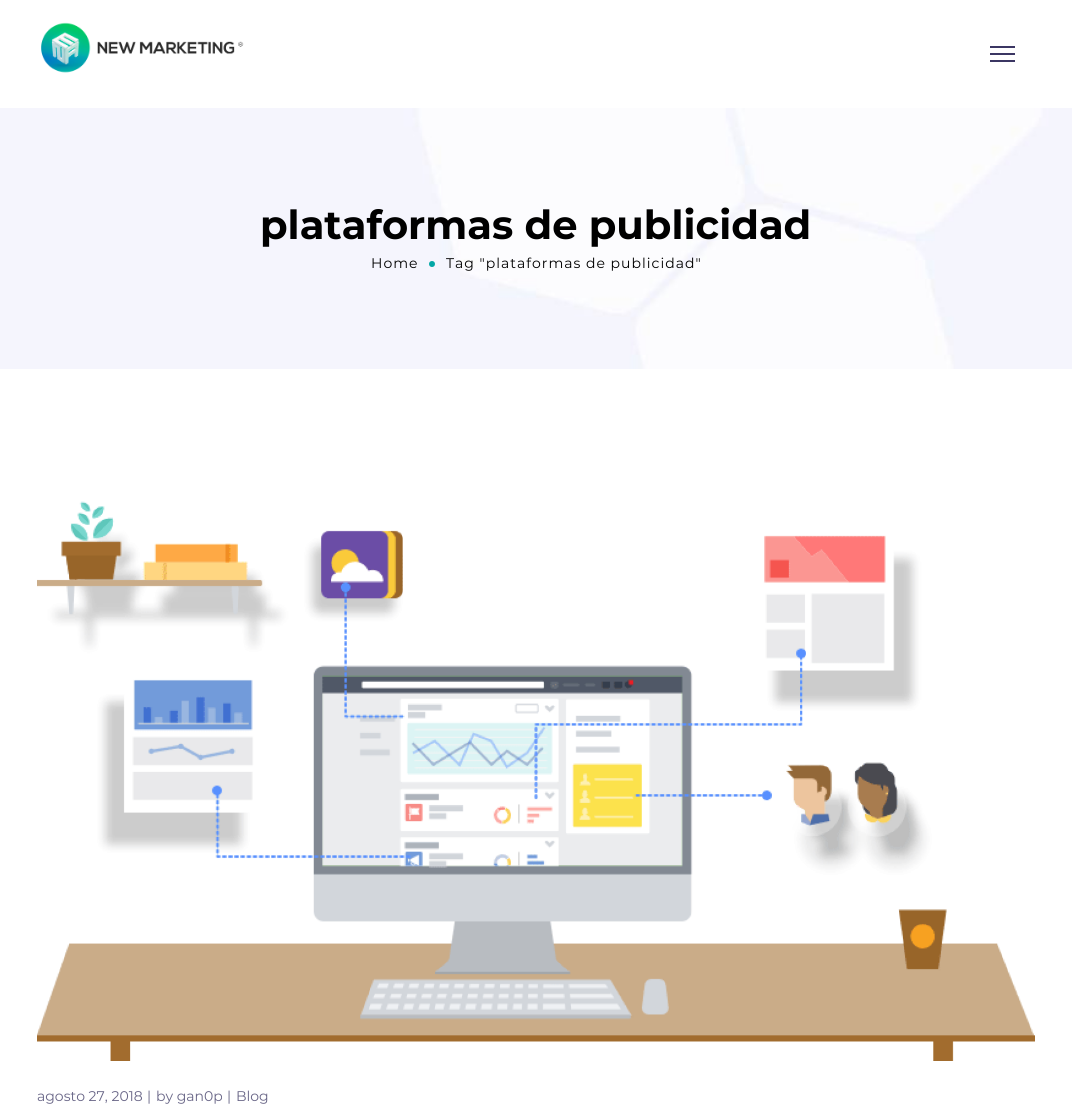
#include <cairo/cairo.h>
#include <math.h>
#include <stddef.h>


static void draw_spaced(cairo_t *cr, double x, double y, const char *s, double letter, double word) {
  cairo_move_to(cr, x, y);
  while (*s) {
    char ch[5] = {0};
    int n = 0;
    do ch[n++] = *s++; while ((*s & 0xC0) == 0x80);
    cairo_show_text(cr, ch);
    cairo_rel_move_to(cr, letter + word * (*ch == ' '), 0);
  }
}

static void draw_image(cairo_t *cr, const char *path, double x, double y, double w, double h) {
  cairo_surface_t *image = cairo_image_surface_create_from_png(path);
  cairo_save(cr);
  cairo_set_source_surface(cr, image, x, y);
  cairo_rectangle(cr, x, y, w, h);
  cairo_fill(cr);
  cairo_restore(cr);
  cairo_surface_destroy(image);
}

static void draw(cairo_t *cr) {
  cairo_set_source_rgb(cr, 1, 1, 1);
  cairo_paint(cr);
  draw_image(cr, "images/1.png", 41, 22, 203, 51);
  cairo_set_source_rgb(cr, 59 / 255.0, 54 / 255.0, 99 / 255.0);
  cairo_rectangle(cr, 990, 53, 25, 2);
  cairo_fill(cr);
  cairo_rectangle(cr, 990, 46, 25, 2);
  cairo_fill(cr);
  cairo_rectangle(cr, 990, 60, 25, 2);
  cairo_fill(cr);
  draw_image(cr, "images/2.png", 0, 108, 1072, 261);
  cairo_set_source_rgb(cr, 3 / 255.0, 167 / 255.0, 166 / 255.0);
  cairo_arc(cr, 432, 264, 3, 0, 2 * M_PI);
  cairo_fill(cr);
  draw_image(cr, "images/3.png", 37, 501, 998, 560);
  cairo_select_font_face(cr, "Montserrat", CAIRO_FONT_SLANT_NORMAL, CAIRO_FONT_WEIGHT_BOLD);
  cairo_set_font_size(cr, 40);
  cairo_set_source_rgb(cr, 0, 0, 0);
  cairo_move_to(cr, 260, 239);
  cairo_show_text(cr, "plataformas de publicidad");
  cairo_select_font_face(cr, "Montserrat", CAIRO_FONT_SLANT_NORMAL, CAIRO_FONT_WEIGHT_NORMAL);
  cairo_set_font_size(cr, 14);
  draw_spaced(cr, 371, 268, "Home", 1, 0);
  draw_spaced(cr, 446, 268, "Tag \"plataformas de publicidad\"", 1, 0);
  cairo_set_source_rgb(cr, 105 / 255.0, 102 / 255.0, 135 / 255.0);
  cairo_move_to(cr, 37, 1101);
  cairo_show_text(cr, "agosto 27, 2018");
  cairo_move_to(cr, 147, 1101);
  cairo_show_text(cr, "|");
  cairo_move_to(cr, 156, 1101);
  cairo_show_text(cr, "by gan0p");
  cairo_move_to(cr, 227, 1101);
  cairo_show_text(cr, "|");
  cairo_move_to(cr, 236, 1101);
  cairo_show_text(cr, "Blog");
}

int main(void) {
  cairo_surface_t *surface = cairo_image_surface_create(CAIRO_FORMAT_RGB24, 1072, 1119);
  cairo_t *cr = cairo_create(surface);
  cairo_font_options_t *options = cairo_font_options_create();
  cairo_font_options_set_hint_metrics(options, CAIRO_HINT_METRICS_OFF);
  cairo_font_options_set_hint_style(options, CAIRO_HINT_STYLE_NONE);
  cairo_set_font_options(cr, options);
  cairo_set_miter_limit(cr, 4);
  draw(cr);
  cairo_surface_write_to_png(surface, "out.png");
  cairo_font_options_destroy(options);
  cairo_destroy(cr);
  cairo_surface_destroy(surface);
  return 0;
}
